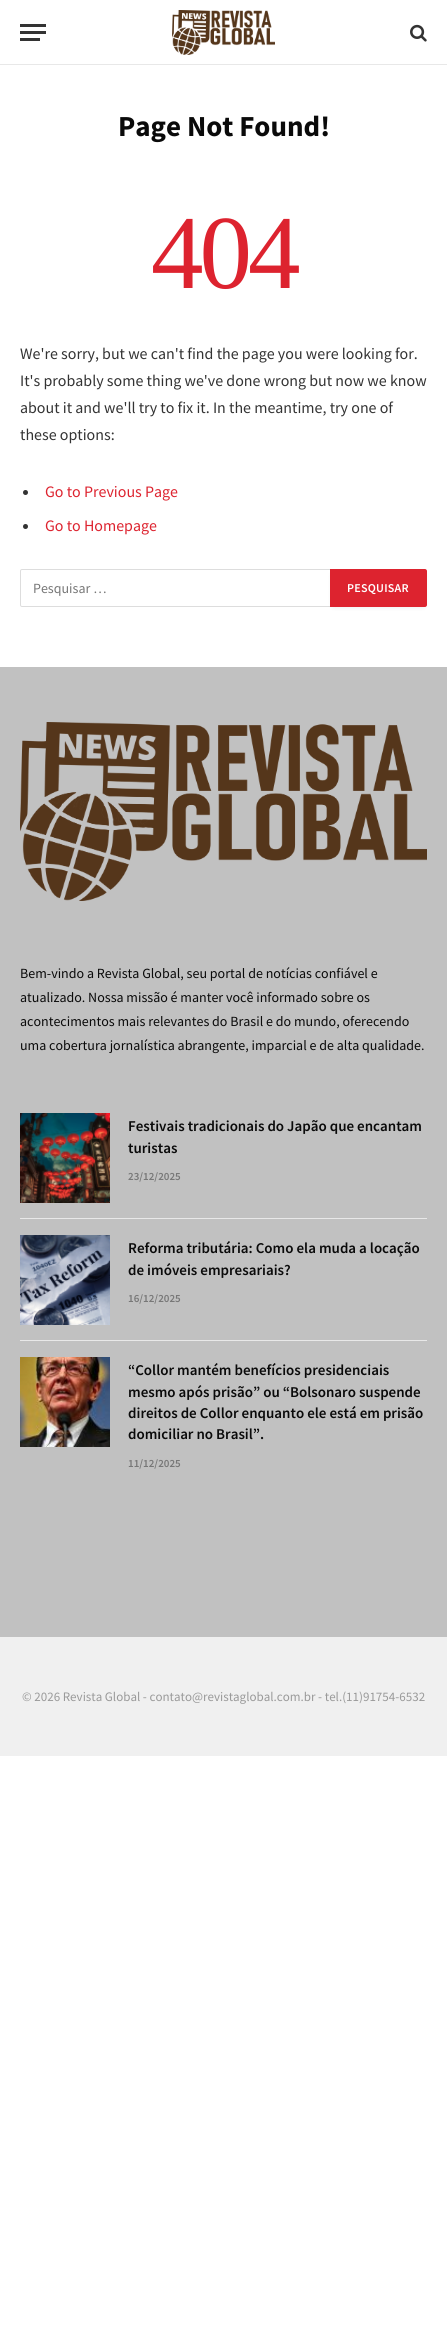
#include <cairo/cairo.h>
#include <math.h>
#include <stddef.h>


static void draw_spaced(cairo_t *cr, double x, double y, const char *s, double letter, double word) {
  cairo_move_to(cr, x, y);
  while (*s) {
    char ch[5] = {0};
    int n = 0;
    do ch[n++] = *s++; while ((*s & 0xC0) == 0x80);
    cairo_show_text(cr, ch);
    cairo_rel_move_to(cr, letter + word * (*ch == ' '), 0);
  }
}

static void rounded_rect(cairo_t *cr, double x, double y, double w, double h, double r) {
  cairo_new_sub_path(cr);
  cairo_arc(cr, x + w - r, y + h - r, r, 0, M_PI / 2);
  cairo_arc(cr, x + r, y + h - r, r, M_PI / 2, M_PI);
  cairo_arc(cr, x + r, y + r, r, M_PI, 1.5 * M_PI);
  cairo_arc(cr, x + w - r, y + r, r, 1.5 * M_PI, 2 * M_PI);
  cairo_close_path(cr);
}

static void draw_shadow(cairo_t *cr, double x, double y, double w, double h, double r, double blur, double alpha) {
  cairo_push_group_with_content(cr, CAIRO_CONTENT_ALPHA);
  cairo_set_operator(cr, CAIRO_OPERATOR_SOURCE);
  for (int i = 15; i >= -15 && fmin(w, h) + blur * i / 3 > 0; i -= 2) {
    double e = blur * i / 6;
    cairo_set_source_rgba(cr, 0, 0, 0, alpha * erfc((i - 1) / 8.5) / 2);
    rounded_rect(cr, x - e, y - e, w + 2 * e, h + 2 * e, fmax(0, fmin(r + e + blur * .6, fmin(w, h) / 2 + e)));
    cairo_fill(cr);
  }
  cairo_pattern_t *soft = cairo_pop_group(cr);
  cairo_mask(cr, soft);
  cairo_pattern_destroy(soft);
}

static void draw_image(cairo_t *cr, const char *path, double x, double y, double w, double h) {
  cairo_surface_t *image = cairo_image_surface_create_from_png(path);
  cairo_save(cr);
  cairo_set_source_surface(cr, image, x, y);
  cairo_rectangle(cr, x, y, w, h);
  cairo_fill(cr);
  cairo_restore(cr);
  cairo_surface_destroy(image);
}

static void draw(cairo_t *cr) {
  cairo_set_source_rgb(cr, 1, 1, 1);
  cairo_paint(cr);
  cairo_set_source_rgb(cr, 232 / 255.0, 232 / 255.0, 232 / 255.0);
  cairo_rectangle(cr, 0, 64, 447, 1);
  cairo_fill(cr);
  cairo_set_source_rgb(cr, 51 / 255.0, 51 / 255.0, 51 / 255.0);
  cairo_rectangle(cr, 20, 38, 20, 3);
  cairo_fill(cr);
  cairo_rectangle(cr, 20, 24, 26, 3);
  cairo_fill(cr);
  cairo_rectangle(cr, 20, 31, 26, 3);
  cairo_fill(cr);
  draw_image(cr, "images/1.png", 172, 10, 103, 45);
  draw_image(cr, "images/2.png", 410, 24, 17, 18);
  cairo_arc(cr, 25.5, 492.5, 2.5, 0, 2 * M_PI);
  cairo_fill(cr);
  cairo_arc(cr, 25.5, 526.5, 2.5, 0, 2 * M_PI);
  cairo_fill(cr);
  rounded_rect(cr, 20.5, 569.5, 311, 37, 1.5);
  cairo_set_source_rgb(cr, 221 / 255.0, 221 / 255.0, 221 / 255.0);
  cairo_set_line_width(cr, 1);
  cairo_stroke(cr);
  cairo_set_source_rgb(cr, 0, 0, 0);
  draw_shadow(cr, 334, 575, 89, 30, 0, 3.5, 0.16);
  cairo_set_source_rgb(cr, 221 / 255.0, 35 / 255.0, 47 / 255.0);
  cairo_new_path(cr);
  cairo_move_to(cr, 330, 569);
  cairo_line_to(cr, 425, 569);
  cairo_curve_to(cr, 426, 569, 427, 570, 427, 571);
  cairo_line_to(cr, 427, 605);
  cairo_curve_to(cr, 427, 606, 426, 607, 425, 607);
  cairo_line_to(cr, 330, 607);
  cairo_close_path(cr);
  cairo_fill(cr);
  cairo_set_source_rgb(cr, 193 / 255.0, 193 / 255.0, 193 / 255.0);
  cairo_rectangle(cr, 0, 667, 447, 970);
  cairo_fill(cr);
  draw_image(cr, "images/3.png", 20, 722, 407, 179);
  draw_image(cr, "images/4.png", 20, 1113, 90, 90);
  cairo_set_source_rgb(cr, 232 / 255.0, 232 / 255.0, 232 / 255.0);
  cairo_rectangle(cr, 20, 1218, 407, 1);
  cairo_fill(cr);
  draw_image(cr, "images/5.png", 20, 1235, 90, 90);
  cairo_rectangle(cr, 20, 1340, 407, 1);
  cairo_fill(cr);
  draw_image(cr, "images/6.png", 20, 1357, 90, 90);
  cairo_set_source_rgb(cr, 240 / 255.0, 240 / 255.0, 240 / 255.0);
  cairo_rectangle(cr, 0, 1637, 447, 119);
  cairo_fill(cr);
  cairo_select_font_face(cr, "Source Sans Pro", CAIRO_FONT_SLANT_NORMAL, CAIRO_FONT_WEIGHT_BOLD);
  cairo_set_font_size(cr, 29);
  cairo_set_source_rgb(cr, 10 / 255.0, 10 / 255.0, 10 / 255.0);
  cairo_move_to(cr, 118, 136);
  cairo_show_text(cr, "Page Not Found!");
  cairo_select_font_face(cr, "Liberation Serif", CAIRO_FONT_SLANT_NORMAL, CAIRO_FONT_WEIGHT_NORMAL);
  cairo_set_font_size(cr, 105);
  cairo_set_source_rgb(cr, 221 / 255.0, 35 / 255.0, 47 / 255.0);
  draw_spaced(cr, 151, 288, "404", -4, 0);
  cairo_select_font_face(cr, "Source Sans Pro", CAIRO_FONT_SLANT_NORMAL, CAIRO_FONT_WEIGHT_NORMAL);
  cairo_set_font_size(cr, 15.95);
  cairo_set_source_rgb(cr, 51 / 255.0, 51 / 255.0, 51 / 255.0);
  cairo_move_to(cr, 20, 359);
  cairo_show_text(cr, "We're sorry, but we can't find the page you were looking for.");
  cairo_move_to(cr, 20, 386);
  cairo_show_text(cr, "It's probably some thing we've done wrong but now we know");
  cairo_move_to(cr, 20, 413);
  cairo_show_text(cr, "about it and we'll try to fix it. In the meantime, try one of");
  cairo_move_to(cr, 20, 440);
  cairo_show_text(cr, "these options:");
  cairo_set_source_rgb(cr, 221 / 255.0, 35 / 255.0, 47 / 255.0);
  cairo_move_to(cr, 45, 497);
  cairo_show_text(cr, "Go to Previous Page");
  cairo_move_to(cr, 45, 531);
  cairo_show_text(cr, "Go to Homepage");
  cairo_set_font_size(cr, 14);
  cairo_set_source_rgb(cr, 119 / 255.0, 119 / 255.0, 119 / 255.0);
  cairo_move_to(cr, 33, 593);
  cairo_show_text(cr, "Pesquisar …");
  cairo_select_font_face(cr, "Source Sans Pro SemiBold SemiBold", CAIRO_FONT_SLANT_NORMAL, CAIRO_FONT_WEIGHT_NORMAL);
  cairo_set_font_size(cr, 12);
  cairo_set_source_rgb(cr, 1, 1, 1);
  draw_spaced(cr, 347, 592, "PESQUISAR", 0.25, 0);
  cairo_select_font_face(cr, "Source Sans Pro", CAIRO_FONT_SLANT_NORMAL, CAIRO_FONT_WEIGHT_NORMAL);
  cairo_set_font_size(cr, 14);
  cairo_set_source_rgb(cr, 10 / 255.0, 10 / 255.0, 10 / 255.0);
  cairo_move_to(cr, 20, 978);
  cairo_show_text(cr, "Bem-vindo a Revista Global, seu portal de notícias confiável e");
  cairo_move_to(cr, 20, 1002);
  cairo_show_text(cr, "atualizado. Nossa missão é manter você informado sobre os");
  cairo_move_to(cr, 20, 1026);
  cairo_show_text(cr, "acontecimentos mais relevantes do Brasil e do mundo, oferecendo");
  cairo_move_to(cr, 20, 1050);
  cairo_show_text(cr, "uma cobertura jornalística abrangente, imparcial e de alta qualidade.");
  cairo_select_font_face(cr, "Source Sans Pro SemiBold SemiBold", CAIRO_FONT_SLANT_NORMAL, CAIRO_FONT_WEIGHT_NORMAL);
  cairo_set_font_size(cr, 15);
  cairo_move_to(cr, 128, 1131);
  cairo_show_text(cr, "Festivais tradicionais do Japão que encantam");
  cairo_move_to(cr, 128, 1153);
  cairo_show_text(cr, "turistas");
  cairo_set_font_size(cr, 11);
  cairo_set_source_rgb(cr, 119 / 255.0, 119 / 255.0, 119 / 255.0);
  cairo_move_to(cr, 128, 1180);
  cairo_show_text(cr, "23/12/2025");
  cairo_set_font_size(cr, 15);
  cairo_set_source_rgb(cr, 10 / 255.0, 10 / 255.0, 10 / 255.0);
  cairo_move_to(cr, 128, 1253);
  cairo_show_text(cr, "Reforma tributária: Como ela muda a locação");
  cairo_move_to(cr, 128, 1275);
  cairo_show_text(cr, "de imóveis empresariais?");
  cairo_set_font_size(cr, 11);
  cairo_set_source_rgb(cr, 119 / 255.0, 119 / 255.0, 119 / 255.0);
  cairo_move_to(cr, 128, 1302);
  cairo_show_text(cr, "16/12/2025");
  cairo_set_font_size(cr, 15);
  cairo_set_source_rgb(cr, 10 / 255.0, 10 / 255.0, 10 / 255.0);
  cairo_move_to(cr, 128, 1375);
  cairo_show_text(cr, "“Collor mantém benefícios presidenciais");
  cairo_move_to(cr, 128, 1397);
  cairo_show_text(cr, "mesmo após prisão” ou “Bolsonaro suspende");
  cairo_move_to(cr, 128, 1418);
  cairo_show_text(cr, "direitos de Collor enquanto ele está em prisão");
  cairo_move_to(cr, 128, 1439);
  cairo_show_text(cr, "domiciliar no Brasil”.");
  cairo_set_font_size(cr, 11);
  cairo_set_source_rgb(cr, 119 / 255.0, 119 / 255.0, 119 / 255.0);
  cairo_move_to(cr, 128, 1467);
  cairo_show_text(cr, "11/12/2025");
  cairo_select_font_face(cr, "Source Sans Pro", CAIRO_FONT_SLANT_NORMAL, CAIRO_FONT_WEIGHT_NORMAL);
  cairo_set_font_size(cr, 13);
  cairo_set_source_rgb(cr, 153 / 255.0, 153 / 255.0, 153 / 255.0);
  cairo_move_to(cr, 22, 1701);
  cairo_show_text(cr, "© 2026 Revista Global - contato@revistaglobal.com.br - tel.(11)91754-6532");
}

int main(void) {
  cairo_surface_t *surface = cairo_image_surface_create(CAIRO_FORMAT_RGB24, 447, 2342);
  cairo_t *cr = cairo_create(surface);
  cairo_font_options_t *options = cairo_font_options_create();
  cairo_font_options_set_hint_metrics(options, CAIRO_HINT_METRICS_OFF);
  cairo_font_options_set_hint_style(options, CAIRO_HINT_STYLE_NONE);
  cairo_set_font_options(cr, options);
  cairo_set_miter_limit(cr, 4);
  draw(cr);
  cairo_surface_write_to_png(surface, "out.png");
  cairo_font_options_destroy(options);
  cairo_destroy(cr);
  cairo_surface_destroy(surface);
  return 0;
}
